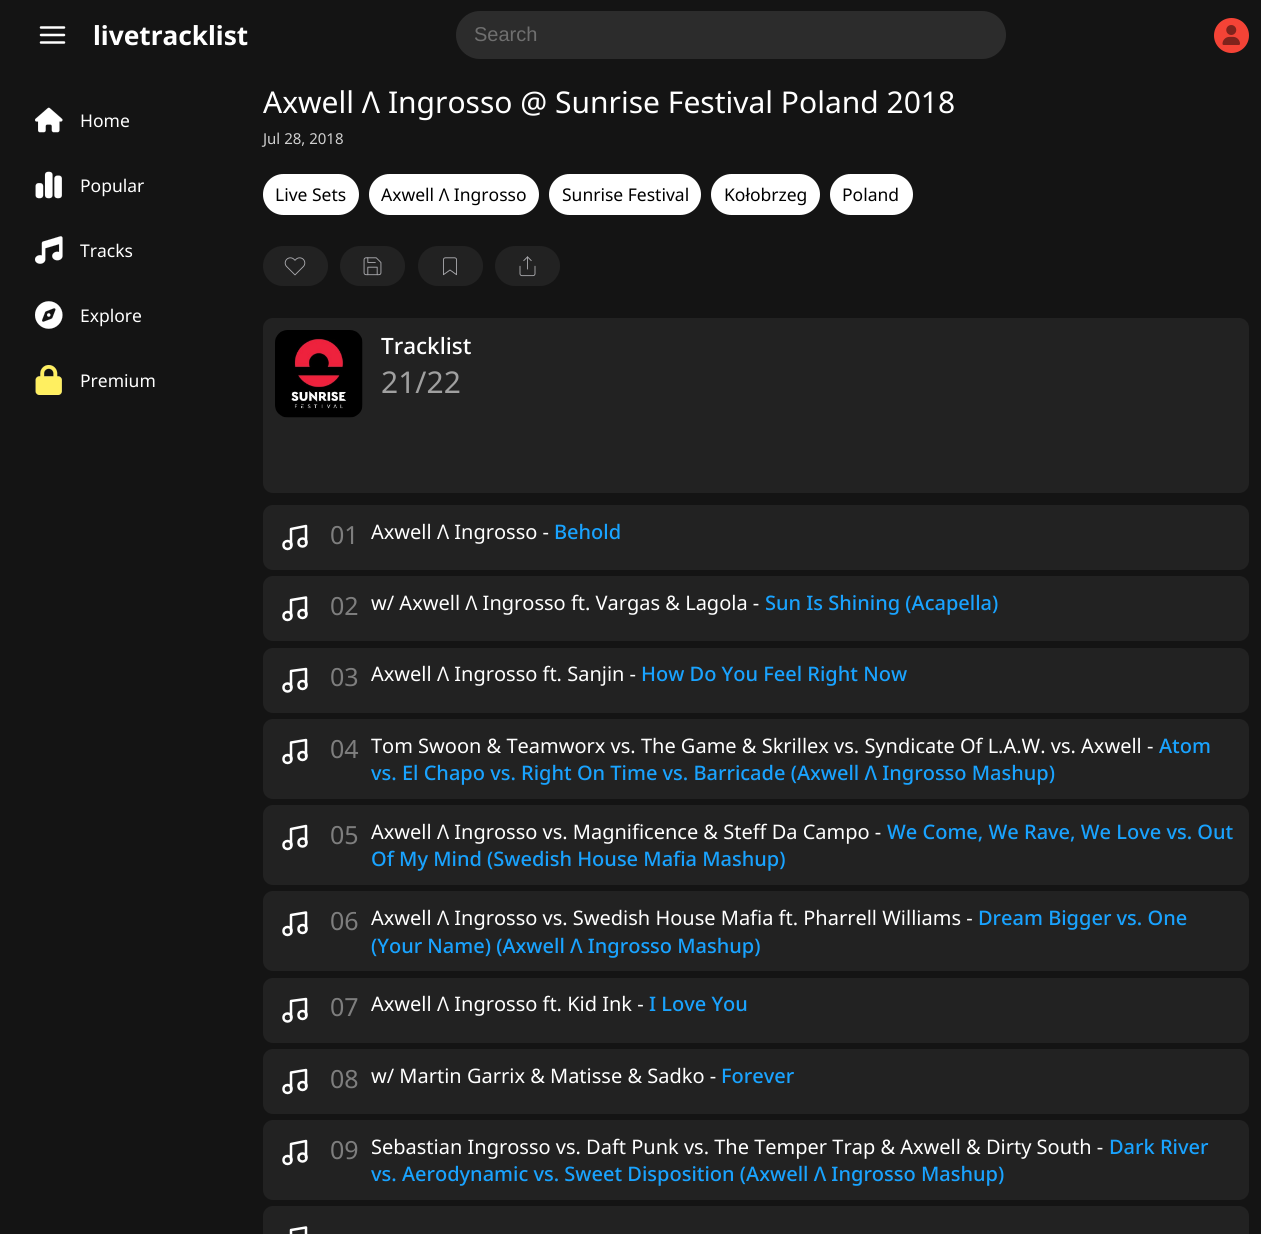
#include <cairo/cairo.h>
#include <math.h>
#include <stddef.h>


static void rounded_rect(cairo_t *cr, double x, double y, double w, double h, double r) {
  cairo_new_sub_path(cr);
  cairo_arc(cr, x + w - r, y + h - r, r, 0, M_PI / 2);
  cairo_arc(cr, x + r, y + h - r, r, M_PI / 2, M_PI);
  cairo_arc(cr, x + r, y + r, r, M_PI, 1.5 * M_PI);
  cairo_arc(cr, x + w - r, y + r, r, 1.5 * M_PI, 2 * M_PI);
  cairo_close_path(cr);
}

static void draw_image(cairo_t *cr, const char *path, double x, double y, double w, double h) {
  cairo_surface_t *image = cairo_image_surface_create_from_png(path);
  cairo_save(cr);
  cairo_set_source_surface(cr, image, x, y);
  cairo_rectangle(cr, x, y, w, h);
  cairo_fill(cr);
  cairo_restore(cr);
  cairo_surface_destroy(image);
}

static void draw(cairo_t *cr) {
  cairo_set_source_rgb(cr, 20 / 255.0, 20 / 255.0, 20 / 255.0);
  cairo_paint(cr);
  cairo_new_path(cr);
  cairo_move_to(cr, 41, 35);
  cairo_line_to(cr, 64, 35);
  cairo_move_to(cr, 41, 27.5);
  cairo_line_to(cr, 64, 27.5);
  cairo_move_to(cr, 41, 42.5);
  cairo_line_to(cr, 64, 42.5);
  cairo_set_source_rgb(cr, 1, 1, 1);
  cairo_set_line_width(cr, 2.5);
  cairo_set_line_cap(cr, CAIRO_LINE_CAP_ROUND);
  cairo_set_line_join(cr, CAIRO_LINE_JOIN_ROUND);
  cairo_stroke(cr);
  cairo_set_source_rgb(cr, 44 / 255.0, 44 / 255.0, 44 / 255.0);
  rounded_rect(cr, 456, 11, 550, 48, 24);
  cairo_fill(cr);
  cairo_set_source_rgb(cr, 244 / 255.0, 67 / 255.0, 54 / 255.0);
  cairo_arc(cr, 1231.5, 35.5, 17.5, 0, 2 * M_PI);
  cairo_fill(cr);
  draw_image(cr, "images/1.png", 1222, 25, 18, 20);
  draw_image(cr, "images/2.png", 35, 107, 28, 26);
  draw_image(cr, "images/3.png", 35, 171, 27, 28);
  draw_image(cr, "images/4.png", 35, 236, 28, 28);
  draw_image(cr, "images/5.png", 35, 301, 28, 28);
  draw_image(cr, "images/6.png", 35, 365, 27, 30);
  cairo_set_source_rgb(cr, 1, 1, 1);
  rounded_rect(cr, 263, 174, 96, 41, 20.5);
  cairo_fill(cr);
  rounded_rect(cr, 369, 174, 170, 41, 20.5);
  cairo_fill(cr);
  rounded_rect(cr, 549, 174, 152, 41, 20.5);
  cairo_fill(cr);
  rounded_rect(cr, 711, 174, 109, 41, 20.5);
  cairo_fill(cr);
  rounded_rect(cr, 830, 174, 83, 41, 20.5);
  cairo_fill(cr);
  cairo_set_source_rgb(cr, 34 / 255.0, 34 / 255.0, 34 / 255.0);
  rounded_rect(cr, 263, 246, 65, 40, 20);
  cairo_fill(cr);
  draw_image(cr, "images/7.png", 284, 257, 22, 19);
  rounded_rect(cr, 340, 246, 65, 40, 20);
  cairo_fill(cr);
  draw_image(cr, "images/8.png", 363, 257, 19, 19);
  rounded_rect(cr, 418, 246, 65, 40, 20);
  cairo_fill(cr);
  draw_image(cr, "images/9.png", 443, 257, 14, 19);
  rounded_rect(cr, 495, 246, 65, 40, 20);
  cairo_fill(cr);
  draw_image(cr, "images/10.png", 519, 256, 17, 21);
  rounded_rect(cr, 263, 318, 986, 175, 10);
  cairo_fill(cr);
  draw_image(cr, "images/11.png", 275, 330, 88, 88);
  rounded_rect(cr, 263, 505, 986, 65, 10);
  cairo_fill(cr);
  cairo_new_path(cr);
  cairo_move_to(cr, 291, 545);
  cairo_line_to(cr, 291, 529);
  cairo_line_to(cr, 306, 526);
  cairo_line_to(cr, 306, 542.5);
  cairo_set_source_rgb(cr, 1, 1, 1);
  cairo_stroke(cr);
  cairo_arc(cr, 287.5, 545, 4, 0, 2 * M_PI);
  cairo_set_line_cap(cr, CAIRO_LINE_CAP_BUTT);
  cairo_set_line_join(cr, CAIRO_LINE_JOIN_MITER);
  cairo_stroke(cr);
  cairo_arc(cr, 302.5, 542.5, 4, 0, 2 * M_PI);
  cairo_stroke(cr);
  cairo_set_source_rgb(cr, 34 / 255.0, 34 / 255.0, 34 / 255.0);
  rounded_rect(cr, 263, 576, 986, 65, 10);
  cairo_fill(cr);
  cairo_new_path(cr);
  cairo_move_to(cr, 291, 616);
  cairo_line_to(cr, 291, 600);
  cairo_line_to(cr, 306, 597.5);
  cairo_line_to(cr, 306, 614);
  cairo_set_source_rgb(cr, 1, 1, 1);
  cairo_set_line_cap(cr, CAIRO_LINE_CAP_ROUND);
  cairo_set_line_join(cr, CAIRO_LINE_JOIN_ROUND);
  cairo_stroke(cr);
  cairo_arc(cr, 287.5, 616, 4, 0, 2 * M_PI);
  cairo_set_line_cap(cr, CAIRO_LINE_CAP_BUTT);
  cairo_set_line_join(cr, CAIRO_LINE_JOIN_MITER);
  cairo_stroke(cr);
  cairo_arc(cr, 302.5, 614, 4, 0, 2 * M_PI);
  cairo_stroke(cr);
  cairo_set_source_rgb(cr, 34 / 255.0, 34 / 255.0, 34 / 255.0);
  rounded_rect(cr, 263, 648, 986, 65, 10);
  cairo_fill(cr);
  cairo_new_path(cr);
  cairo_move_to(cr, 291, 687.5);
  cairo_line_to(cr, 291, 671);
  cairo_line_to(cr, 306, 669);
  cairo_line_to(cr, 306, 685);
  cairo_set_source_rgb(cr, 1, 1, 1);
  cairo_set_line_cap(cr, CAIRO_LINE_CAP_ROUND);
  cairo_set_line_join(cr, CAIRO_LINE_JOIN_ROUND);
  cairo_stroke(cr);
  cairo_arc(cr, 287.5, 687.5, 4, 0, 2 * M_PI);
  cairo_set_line_cap(cr, CAIRO_LINE_CAP_BUTT);
  cairo_set_line_join(cr, CAIRO_LINE_JOIN_MITER);
  cairo_stroke(cr);
  cairo_arc(cr, 302.5, 685, 4, 0, 2 * M_PI);
  cairo_stroke(cr);
  cairo_set_source_rgb(cr, 34 / 255.0, 34 / 255.0, 34 / 255.0);
  rounded_rect(cr, 263, 719, 986, 80, 10);
  cairo_fill(cr);
  cairo_new_path(cr);
  cairo_move_to(cr, 291, 759);
  cairo_line_to(cr, 291, 742.5);
  cairo_line_to(cr, 306, 740);
  cairo_line_to(cr, 306, 756);
  cairo_set_source_rgb(cr, 1, 1, 1);
  cairo_set_line_cap(cr, CAIRO_LINE_CAP_ROUND);
  cairo_set_line_join(cr, CAIRO_LINE_JOIN_ROUND);
  cairo_stroke(cr);
  cairo_arc(cr, 287.5, 759, 4, 0, 2 * M_PI);
  cairo_set_line_cap(cr, CAIRO_LINE_CAP_BUTT);
  cairo_set_line_join(cr, CAIRO_LINE_JOIN_MITER);
  cairo_stroke(cr);
  cairo_arc(cr, 302.5, 756, 4, 0, 2 * M_PI);
  cairo_stroke(cr);
  cairo_set_source_rgb(cr, 34 / 255.0, 34 / 255.0, 34 / 255.0);
  rounded_rect(cr, 263, 805, 986, 80, 10);
  cairo_fill(cr);
  cairo_new_path(cr);
  cairo_move_to(cr, 291, 845);
  cairo_line_to(cr, 291, 829);
  cairo_line_to(cr, 306, 826);
  cairo_line_to(cr, 306, 842.5);
  cairo_set_source_rgb(cr, 1, 1, 1);
  cairo_set_line_cap(cr, CAIRO_LINE_CAP_ROUND);
  cairo_set_line_join(cr, CAIRO_LINE_JOIN_ROUND);
  cairo_stroke(cr);
  cairo_arc(cr, 287.5, 845, 4, 0, 2 * M_PI);
  cairo_set_line_cap(cr, CAIRO_LINE_CAP_BUTT);
  cairo_set_line_join(cr, CAIRO_LINE_JOIN_MITER);
  cairo_stroke(cr);
  cairo_arc(cr, 302.5, 842.5, 4, 0, 2 * M_PI);
  cairo_stroke(cr);
  cairo_set_source_rgb(cr, 34 / 255.0, 34 / 255.0, 34 / 255.0);
  rounded_rect(cr, 263, 891, 986, 80, 10);
  cairo_fill(cr);
  cairo_new_path(cr);
  cairo_move_to(cr, 291, 931);
  cairo_line_to(cr, 291, 915);
  cairo_line_to(cr, 306, 912.5);
  cairo_line_to(cr, 306, 929);
  cairo_set_source_rgb(cr, 1, 1, 1);
  cairo_set_line_cap(cr, CAIRO_LINE_CAP_ROUND);
  cairo_set_line_join(cr, CAIRO_LINE_JOIN_ROUND);
  cairo_stroke(cr);
  cairo_arc(cr, 287.5, 931, 4, 0, 2 * M_PI);
  cairo_set_line_cap(cr, CAIRO_LINE_CAP_BUTT);
  cairo_set_line_join(cr, CAIRO_LINE_JOIN_MITER);
  cairo_stroke(cr);
  cairo_arc(cr, 302.5, 929, 4, 0, 2 * M_PI);
  cairo_stroke(cr);
  cairo_set_source_rgb(cr, 34 / 255.0, 34 / 255.0, 34 / 255.0);
  rounded_rect(cr, 263, 978, 986, 65, 10);
  cairo_fill(cr);
  cairo_new_path(cr);
  cairo_move_to(cr, 291, 1017.5);
  cairo_line_to(cr, 291, 1001);
  cairo_line_to(cr, 306, 999);
  cairo_line_to(cr, 306, 1015);
  cairo_set_source_rgb(cr, 1, 1, 1);
  cairo_set_line_cap(cr, CAIRO_LINE_CAP_ROUND);
  cairo_set_line_join(cr, CAIRO_LINE_JOIN_ROUND);
  cairo_stroke(cr);
  cairo_arc(cr, 287.5, 1017.5, 4, 0, 2 * M_PI);
  cairo_set_line_cap(cr, CAIRO_LINE_CAP_BUTT);
  cairo_set_line_join(cr, CAIRO_LINE_JOIN_MITER);
  cairo_stroke(cr);
  cairo_arc(cr, 302.5, 1015, 4, 0, 2 * M_PI);
  cairo_stroke(cr);
  cairo_set_source_rgb(cr, 34 / 255.0, 34 / 255.0, 34 / 255.0);
  rounded_rect(cr, 263, 1049, 986, 65, 10);
  cairo_fill(cr);
  cairo_new_path(cr);
  cairo_move_to(cr, 291, 1089);
  cairo_line_to(cr, 291, 1072.5);
  cairo_line_to(cr, 306, 1070);
  cairo_line_to(cr, 306, 1086);
  cairo_set_source_rgb(cr, 1, 1, 1);
  cairo_set_line_cap(cr, CAIRO_LINE_CAP_ROUND);
  cairo_set_line_join(cr, CAIRO_LINE_JOIN_ROUND);
  cairo_stroke(cr);
  cairo_arc(cr, 287.5, 1089, 4, 0, 2 * M_PI);
  cairo_set_line_cap(cr, CAIRO_LINE_CAP_BUTT);
  cairo_set_line_join(cr, CAIRO_LINE_JOIN_MITER);
  cairo_stroke(cr);
  cairo_arc(cr, 302.5, 1086, 4, 0, 2 * M_PI);
  cairo_stroke(cr);
  cairo_set_source_rgb(cr, 34 / 255.0, 34 / 255.0, 34 / 255.0);
  rounded_rect(cr, 263, 1120, 986, 80, 10);
  cairo_fill(cr);
  cairo_new_path(cr);
  cairo_move_to(cr, 291, 1160);
  cairo_line_to(cr, 291, 1144);
  cairo_line_to(cr, 306, 1141);
  cairo_line_to(cr, 306, 1157.5);
  cairo_set_source_rgb(cr, 1, 1, 1);
  cairo_set_line_cap(cr, CAIRO_LINE_CAP_ROUND);
  cairo_set_line_join(cr, CAIRO_LINE_JOIN_ROUND);
  cairo_stroke(cr);
  cairo_arc(cr, 287.5, 1160, 4, 0, 2 * M_PI);
  cairo_set_line_cap(cr, CAIRO_LINE_CAP_BUTT);
  cairo_set_line_join(cr, CAIRO_LINE_JOIN_MITER);
  cairo_stroke(cr);
  cairo_arc(cr, 302.5, 1157.5, 4, 0, 2 * M_PI);
  cairo_stroke(cr);
  cairo_set_source_rgb(cr, 34 / 255.0, 34 / 255.0, 34 / 255.0);
  rounded_rect(cr, 263, 1206, 986, 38, 10);
  cairo_fill(cr);
  cairo_new_path(cr);
  cairo_move_to(cr, 291, 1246);
  cairo_line_to(cr, 291, 1230);
  cairo_line_to(cr, 306, 1227.5);
  cairo_line_to(cr, 306, 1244);
  cairo_set_source_rgb(cr, 1, 1, 1);
  cairo_set_line_cap(cr, CAIRO_LINE_CAP_ROUND);
  cairo_set_line_join(cr, CAIRO_LINE_JOIN_ROUND);
  cairo_stroke(cr);
  cairo_select_font_face(cr, "Noto Sans", CAIRO_FONT_SLANT_NORMAL, CAIRO_FONT_WEIGHT_BOLD);
  cairo_set_font_size(cr, 26.25);
  cairo_move_to(cr, 93, 45);
  cairo_show_text(cr, "livetracklist");
  cairo_select_font_face(cr, "Liberation Sans", CAIRO_FONT_SLANT_NORMAL, CAIRO_FONT_WEIGHT_NORMAL);
  cairo_set_font_size(cr, 20);
  cairo_set_source_rgb(cr, 111 / 255.0, 111 / 255.0, 111 / 255.0);
  cairo_move_to(cr, 474, 41);
  cairo_show_text(cr, "Search");
  cairo_select_font_face(cr, "Noto Sans", CAIRO_FONT_SLANT_NORMAL, CAIRO_FONT_WEIGHT_NORMAL);
  cairo_set_font_size(cr, 17.5);
  cairo_set_source_rgb(cr, 1, 1, 1);
  cairo_move_to(cr, 80, 127);
  cairo_show_text(cr, "Home");
  cairo_move_to(cr, 80, 192);
  cairo_show_text(cr, "Popular");
  cairo_move_to(cr, 80, 257);
  cairo_show_text(cr, "Tracks");
  cairo_move_to(cr, 80, 322);
  cairo_show_text(cr, "Explore");
  cairo_move_to(cr, 80, 387);
  cairo_show_text(cr, "Premium");
  cairo_set_font_size(cr, 30);
  cairo_move_to(cr, 263, 113);
  cairo_show_text(cr, "Axwell Λ Ingrosso @ Sunrise Festival Poland 2018");
  cairo_set_font_size(cr, 15);
  cairo_set_source_rgb(cr, 208 / 255.0, 208 / 255.0, 208 / 255.0);
  cairo_move_to(cr, 263, 144);
  cairo_show_text(cr, "Jul 28, 2018");
  cairo_set_font_size(cr, 17.5);
  cairo_set_source_rgb(cr, 0, 0, 0);
  cairo_move_to(cr, 275, 201);
  cairo_show_text(cr, "Live Sets");
  cairo_move_to(cr, 381, 201);
  cairo_show_text(cr, "Axwell Λ Ingrosso");
  cairo_move_to(cr, 562, 201);
  cairo_show_text(cr, "Sunrise Festival");
  cairo_move_to(cr, 724, 201);
  cairo_show_text(cr, "Kołobrzeg");
  cairo_move_to(cr, 842, 201);
  cairo_show_text(cr, "Poland");
  cairo_select_font_face(cr, "Noto Sans Medium", CAIRO_FONT_SLANT_NORMAL, CAIRO_FONT_WEIGHT_NORMAL);
  cairo_set_font_size(cr, 22.5);
  cairo_set_source_rgb(cr, 1, 1, 1);
  cairo_move_to(cr, 381, 354);
  cairo_show_text(cr, "Tracklist");
  cairo_select_font_face(cr, "Noto Sans", CAIRO_FONT_SLANT_NORMAL, CAIRO_FONT_WEIGHT_NORMAL);
  cairo_set_font_size(cr, 30);
  cairo_set_source_rgb(cr, 160 / 255.0, 160 / 255.0, 160 / 255.0);
  cairo_move_to(cr, 381, 393);
  cairo_show_text(cr, "21/22");
  cairo_set_font_size(cr, 25);
  cairo_set_source_rgb(cr, 126 / 255.0, 126 / 255.0, 126 / 255.0);
  cairo_move_to(cr, 330, 544);
  cairo_show_text(cr, "01");
  cairo_set_font_size(cr, 20);
  cairo_set_source_rgb(cr, 1, 1, 1);
  cairo_move_to(cr, 371, 539);
  cairo_show_text(cr, "Axwell Λ Ingrosso -");
  cairo_select_font_face(cr, "Noto Sans Medium", CAIRO_FONT_SLANT_NORMAL, CAIRO_FONT_WEIGHT_NORMAL);
  cairo_set_source_rgb(cr, 25 / 255.0, 163 / 255.0, 1);
  cairo_move_to(cr, 554, 539);
  cairo_show_text(cr, "Behold");
  cairo_select_font_face(cr, "Noto Sans", CAIRO_FONT_SLANT_NORMAL, CAIRO_FONT_WEIGHT_NORMAL);
  cairo_set_font_size(cr, 25);
  cairo_set_source_rgb(cr, 126 / 255.0, 126 / 255.0, 126 / 255.0);
  cairo_move_to(cr, 330, 615);
  cairo_show_text(cr, "02");
  cairo_set_font_size(cr, 20);
  cairo_set_source_rgb(cr, 1, 1, 1);
  cairo_move_to(cr, 371, 610);
  cairo_show_text(cr, "w/ Axwell Λ Ingrosso ft. Vargas & Lagola -");
  cairo_select_font_face(cr, "Noto Sans Medium", CAIRO_FONT_SLANT_NORMAL, CAIRO_FONT_WEIGHT_NORMAL);
  cairo_set_source_rgb(cr, 25 / 255.0, 163 / 255.0, 1);
  cairo_move_to(cr, 765, 610);
  cairo_show_text(cr, "Sun Is Shining (Acapella)");
  cairo_select_font_face(cr, "Noto Sans", CAIRO_FONT_SLANT_NORMAL, CAIRO_FONT_WEIGHT_NORMAL);
  cairo_set_font_size(cr, 25);
  cairo_set_source_rgb(cr, 126 / 255.0, 126 / 255.0, 126 / 255.0);
  cairo_move_to(cr, 330, 686);
  cairo_show_text(cr, "03");
  cairo_set_font_size(cr, 20);
  cairo_set_source_rgb(cr, 1, 1, 1);
  cairo_move_to(cr, 371, 681);
  cairo_show_text(cr, "Axwell Λ Ingrosso ft. Sanjin -");
  cairo_select_font_face(cr, "Noto Sans Medium", CAIRO_FONT_SLANT_NORMAL, CAIRO_FONT_WEIGHT_NORMAL);
  cairo_set_source_rgb(cr, 25 / 255.0, 163 / 255.0, 1);
  cairo_move_to(cr, 641, 681);
  cairo_show_text(cr, "How Do You Feel Right Now");
  cairo_select_font_face(cr, "Noto Sans", CAIRO_FONT_SLANT_NORMAL, CAIRO_FONT_WEIGHT_NORMAL);
  cairo_set_font_size(cr, 25);
  cairo_set_source_rgb(cr, 126 / 255.0, 126 / 255.0, 126 / 255.0);
  cairo_move_to(cr, 330, 758);
  cairo_show_text(cr, "04");
  cairo_set_font_size(cr, 20);
  cairo_set_source_rgb(cr, 1, 1, 1);
  cairo_move_to(cr, 371, 753);
  cairo_show_text(cr, "Tom Swoon & Teamworx vs. The Game & Skrillex vs. Syndicate Of L.A.W. vs. Axwell -");
  cairo_select_font_face(cr, "Noto Sans Medium", CAIRO_FONT_SLANT_NORMAL, CAIRO_FONT_WEIGHT_NORMAL);
  cairo_set_source_rgb(cr, 25 / 255.0, 163 / 255.0, 1);
  cairo_move_to(cr, 1159, 753);
  cairo_show_text(cr, "Atom");
  cairo_move_to(cr, 371, 780);
  cairo_show_text(cr, "vs. El Chapo vs. Right On Time vs. Barricade (Axwell Λ Ingrosso Mashup)");
  cairo_select_font_face(cr, "Noto Sans", CAIRO_FONT_SLANT_NORMAL, CAIRO_FONT_WEIGHT_NORMAL);
  cairo_set_font_size(cr, 25);
  cairo_set_source_rgb(cr, 126 / 255.0, 126 / 255.0, 126 / 255.0);
  cairo_move_to(cr, 330, 844);
  cairo_show_text(cr, "05");
  cairo_set_font_size(cr, 20);
  cairo_set_source_rgb(cr, 1, 1, 1);
  cairo_move_to(cr, 371, 839);
  cairo_show_text(cr, "Axwell Λ Ingrosso vs. Magnificence & Steff Da Campo -");
  cairo_select_font_face(cr, "Noto Sans Medium", CAIRO_FONT_SLANT_NORMAL, CAIRO_FONT_WEIGHT_NORMAL);
  cairo_set_source_rgb(cr, 25 / 255.0, 163 / 255.0, 1);
  cairo_move_to(cr, 887, 839);
  cairo_show_text(cr, "We Come, We Rave, We Love vs. Out");
  cairo_move_to(cr, 371, 866);
  cairo_show_text(cr, "Of My Mind (Swedish House Mafia Mashup)");
  cairo_select_font_face(cr, "Noto Sans", CAIRO_FONT_SLANT_NORMAL, CAIRO_FONT_WEIGHT_NORMAL);
  cairo_set_font_size(cr, 25);
  cairo_set_source_rgb(cr, 126 / 255.0, 126 / 255.0, 126 / 255.0);
  cairo_move_to(cr, 330, 930);
  cairo_show_text(cr, "06");
  cairo_set_font_size(cr, 20);
  cairo_set_source_rgb(cr, 1, 1, 1);
  cairo_move_to(cr, 371, 925);
  cairo_show_text(cr, "Axwell Λ Ingrosso vs. Swedish House Mafia ft. Pharrell Williams -");
  cairo_select_font_face(cr, "Noto Sans Medium", CAIRO_FONT_SLANT_NORMAL, CAIRO_FONT_WEIGHT_NORMAL);
  cairo_set_source_rgb(cr, 25 / 255.0, 163 / 255.0, 1);
  cairo_move_to(cr, 978, 925);
  cairo_show_text(cr, "Dream Bigger vs. One");
  cairo_move_to(cr, 371, 953);
  cairo_show_text(cr, "(Your Name) (Axwell Λ Ingrosso Mashup)");
  cairo_select_font_face(cr, "Noto Sans", CAIRO_FONT_SLANT_NORMAL, CAIRO_FONT_WEIGHT_NORMAL);
  cairo_set_font_size(cr, 25);
  cairo_set_source_rgb(cr, 126 / 255.0, 126 / 255.0, 126 / 255.0);
  cairo_move_to(cr, 330, 1016);
  cairo_show_text(cr, "07");
  cairo_set_font_size(cr, 20);
  cairo_set_source_rgb(cr, 1, 1, 1);
  cairo_move_to(cr, 371, 1011);
  cairo_show_text(cr, "Axwell Λ Ingrosso ft. Kid Ink -");
  cairo_select_font_face(cr, "Noto Sans Medium", CAIRO_FONT_SLANT_NORMAL, CAIRO_FONT_WEIGHT_NORMAL);
  cairo_set_source_rgb(cr, 25 / 255.0, 163 / 255.0, 1);
  cairo_move_to(cr, 649, 1011);
  cairo_show_text(cr, "I Love You");
  cairo_select_font_face(cr, "Noto Sans", CAIRO_FONT_SLANT_NORMAL, CAIRO_FONT_WEIGHT_NORMAL);
  cairo_set_font_size(cr, 25);
  cairo_set_source_rgb(cr, 126 / 255.0, 126 / 255.0, 126 / 255.0);
  cairo_move_to(cr, 330, 1088);
  cairo_show_text(cr, "08");
  cairo_set_font_size(cr, 20);
  cairo_set_source_rgb(cr, 1, 1, 1);
  cairo_move_to(cr, 371, 1083);
  cairo_show_text(cr, "w/ Martin Garrix & Matisse & Sadko -");
  cairo_select_font_face(cr, "Noto Sans Medium", CAIRO_FONT_SLANT_NORMAL, CAIRO_FONT_WEIGHT_NORMAL);
  cairo_set_source_rgb(cr, 25 / 255.0, 163 / 255.0, 1);
  cairo_move_to(cr, 721, 1083);
  cairo_show_text(cr, "Forever");
  cairo_select_font_face(cr, "Noto Sans", CAIRO_FONT_SLANT_NORMAL, CAIRO_FONT_WEIGHT_NORMAL);
  cairo_set_font_size(cr, 25);
  cairo_set_source_rgb(cr, 126 / 255.0, 126 / 255.0, 126 / 255.0);
  cairo_move_to(cr, 330, 1159);
  cairo_show_text(cr, "09");
  cairo_set_font_size(cr, 20);
  cairo_set_source_rgb(cr, 1, 1, 1);
  cairo_move_to(cr, 371, 1154);
  cairo_show_text(cr, "Sebastian Ingrosso vs. Daft Punk vs. The Temper Trap & Axwell & Dirty South -");
  cairo_select_font_face(cr, "Noto Sans Medium", CAIRO_FONT_SLANT_NORMAL, CAIRO_FONT_WEIGHT_NORMAL);
  cairo_set_source_rgb(cr, 25 / 255.0, 163 / 255.0, 1);
  cairo_move_to(cr, 1109, 1154);
  cairo_show_text(cr, "Dark River");
  cairo_move_to(cr, 371, 1181);
  cairo_show_text(cr, "vs. Aerodynamic vs. Sweet Disposition (Axwell Λ Ingrosso Mashup)");
}

int main(void) {
  cairo_surface_t *surface = cairo_image_surface_create(CAIRO_FORMAT_RGB24, 1261, 1234);
  cairo_t *cr = cairo_create(surface);
  cairo_font_options_t *options = cairo_font_options_create();
  cairo_font_options_set_hint_metrics(options, CAIRO_HINT_METRICS_OFF);
  cairo_font_options_set_hint_style(options, CAIRO_HINT_STYLE_NONE);
  cairo_set_font_options(cr, options);
  cairo_set_miter_limit(cr, 4);
  draw(cr);
  cairo_surface_write_to_png(surface, "out.png");
  cairo_font_options_destroy(options);
  cairo_destroy(cr);
  cairo_surface_destroy(surface);
  return 0;
}
